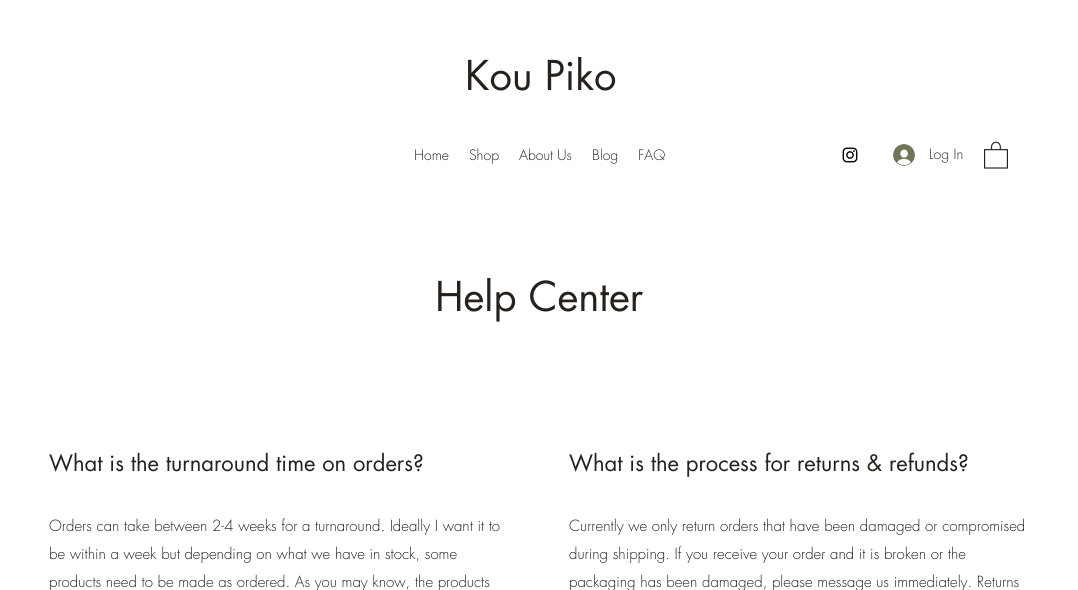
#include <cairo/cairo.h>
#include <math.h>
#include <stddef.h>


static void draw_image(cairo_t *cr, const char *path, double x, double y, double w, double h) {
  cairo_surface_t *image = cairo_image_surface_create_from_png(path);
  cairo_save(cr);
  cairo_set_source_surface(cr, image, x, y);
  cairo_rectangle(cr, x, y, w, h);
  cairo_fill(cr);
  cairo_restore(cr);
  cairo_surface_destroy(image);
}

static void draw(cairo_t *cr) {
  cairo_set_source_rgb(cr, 1, 1, 1);
  cairo_paint(cr);
  draw_image(cr, "images/1.png", 842, 147, 16, 16);
  draw_image(cr, "images/2.png", 893, 144, 22, 22);
  draw_image(cr, "images/3.png", 984, 141, 24, 28);
  cairo_select_font_face(cr, "futura", CAIRO_FONT_SLANT_NORMAL, CAIRO_FONT_WEIGHT_NORMAL);
  cairo_set_font_size(cr, 40);
  cairo_set_source_rgb(cr, 39 / 255.0, 33 / 255.0, 30 / 255.0);
  cairo_move_to(cr, 465, 90);
  cairo_show_text(cr, "Kou Piko");
  cairo_select_font_face(cr, "futura Light", CAIRO_FONT_SLANT_NORMAL, CAIRO_FONT_WEIGHT_NORMAL);
  cairo_set_font_size(cr, 14);
  cairo_move_to(cr, 414, 160);
  cairo_show_text(cr, "Home");
  cairo_move_to(cr, 469, 160);
  cairo_show_text(cr, "Shop");
  cairo_move_to(cr, 519, 160);
  cairo_show_text(cr, "About Us");
  cairo_move_to(cr, 592, 160);
  cairo_show_text(cr, "Blog");
  cairo_set_source_rgb(cr, 49 / 255.0, 40 / 255.0, 36 / 255.0);
  cairo_move_to(cr, 638, 160);
  cairo_show_text(cr, "FAQ");
  cairo_set_source_rgb(cr, 39 / 255.0, 33 / 255.0, 30 / 255.0);
  cairo_move_to(cr, 929, 159);
  cairo_show_text(cr, "Log In");
  cairo_select_font_face(cr, "futura", CAIRO_FONT_SLANT_NORMAL, CAIRO_FONT_WEIGHT_NORMAL);
  cairo_set_font_size(cr, 40);
  cairo_move_to(cr, 435, 311);
  cairo_show_text(cr, "Help Center");
  cairo_set_font_size(cr, 22);
  cairo_move_to(cr, 49, 471);
  cairo_show_text(cr, "What is the turnaround time on orders?");
  cairo_select_font_face(cr, "futura Light", CAIRO_FONT_SLANT_NORMAL, CAIRO_FONT_WEIGHT_NORMAL);
  cairo_set_font_size(cr, 15);
  cairo_move_to(cr, 49, 531);
  cairo_show_text(cr, "Orders can take between 2-4 weeks for a turnaround. Ideally I want it to");
  cairo_move_to(cr, 49, 559);
  cairo_show_text(cr, "be within a week but depending on what we have in stock, some");
  cairo_move_to(cr, 49, 587);
  cairo_show_text(cr, "products need to be made as ordered. As you may know, the products");
  cairo_select_font_face(cr, "futura", CAIRO_FONT_SLANT_NORMAL, CAIRO_FONT_WEIGHT_NORMAL);
  cairo_set_font_size(cr, 22);
  cairo_move_to(cr, 569, 471);
  cairo_show_text(cr, "What is the process for returns & refunds?");
  cairo_select_font_face(cr, "futura Light", CAIRO_FONT_SLANT_NORMAL, CAIRO_FONT_WEIGHT_NORMAL);
  cairo_set_font_size(cr, 15);
  cairo_move_to(cr, 569, 531);
  cairo_show_text(cr, "Currently we only return orders that have been damaged or compromised");
  cairo_move_to(cr, 569, 559);
  cairo_show_text(cr, "during shipping. If you receive your order and it is broken or the");
  cairo_move_to(cr, 569, 587);
  cairo_show_text(cr, "packaging has been damaged, please message us immediately. Returns");
}

int main(void) {
  cairo_surface_t *surface = cairo_image_surface_create(CAIRO_FORMAT_RGB24, 1078, 590);
  cairo_t *cr = cairo_create(surface);
  cairo_font_options_t *options = cairo_font_options_create();
  cairo_font_options_set_hint_metrics(options, CAIRO_HINT_METRICS_OFF);
  cairo_font_options_set_hint_style(options, CAIRO_HINT_STYLE_NONE);
  cairo_set_font_options(cr, options);
  cairo_set_miter_limit(cr, 4);
  draw(cr);
  cairo_surface_write_to_png(surface, "out.png");
  cairo_font_options_destroy(options);
  cairo_destroy(cr);
  cairo_surface_destroy(surface);
  return 0;
}
